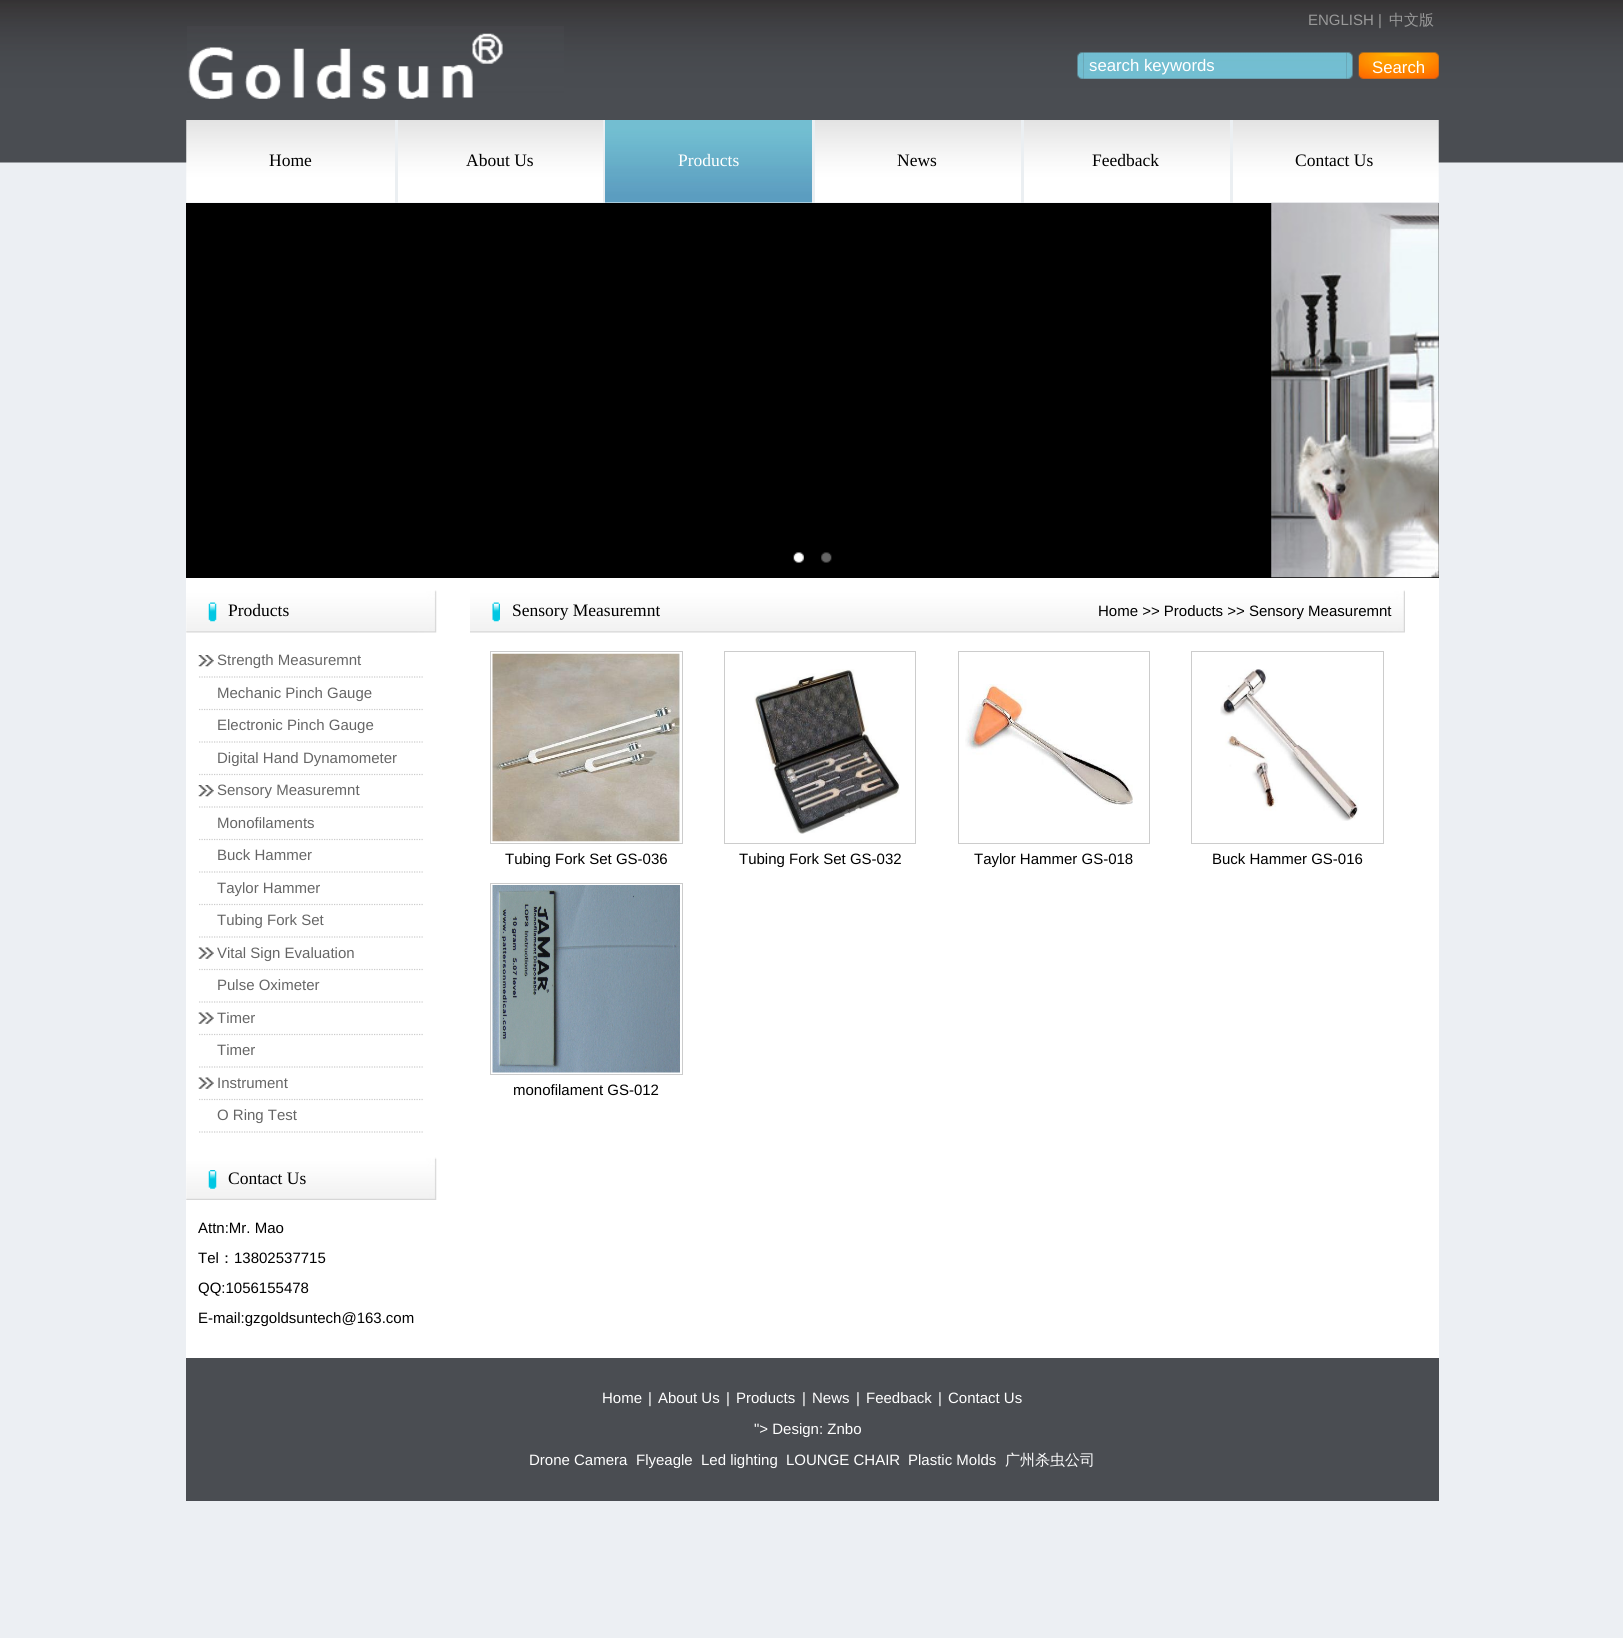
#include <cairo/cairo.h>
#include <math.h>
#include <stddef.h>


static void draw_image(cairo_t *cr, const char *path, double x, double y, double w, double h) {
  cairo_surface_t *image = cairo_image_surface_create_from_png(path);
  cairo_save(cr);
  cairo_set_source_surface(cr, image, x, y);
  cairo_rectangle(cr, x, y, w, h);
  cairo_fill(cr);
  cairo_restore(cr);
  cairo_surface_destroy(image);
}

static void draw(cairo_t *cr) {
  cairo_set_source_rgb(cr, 236 / 255.0, 239 / 255.0, 243 / 255.0);
  cairo_paint(cr);
  draw_image(cr, "images/1.png", 0, 0, 1623, 163);
  draw_image(cr, "images/2.png", 187, 26, 377, 73);
  draw_image(cr, "images/3.png", 1077, 52, 7, 27);
  draw_image(cr, "images/4.png", 1083, 52, 264, 27);
  draw_image(cr, "images/5.png", 1346, 52, 7, 27);
  draw_image(cr, "images/6.png", 1358, 52, 81, 27);
  draw_image(cr, "images/7.png", 186, 120, 1253, 83);
  cairo_set_source_rgb(cr, 235 / 255.0, 239 / 255.0, 242 / 255.0);
  cairo_rectangle(cr, 395, 120, 3, 83);
  cairo_fill(cr);
  cairo_rectangle(cr, 603, 120, 4, 83);
  cairo_fill(cr);
  draw_image(cr, "images/8.png", 605, 120, 207, 83);
  cairo_rectangle(cr, 812, 120, 3, 83);
  cairo_fill(cr);
  cairo_rectangle(cr, 1021, 120, 3, 83);
  cairo_fill(cr);
  cairo_rectangle(cr, 1230, 120, 3, 83);
  cairo_fill(cr);
  cairo_set_source_rgb(cr, 0, 0, 0);
  cairo_rectangle(cr, 186, 203, 1253, 375);
  cairo_fill(cr);
  draw_image(cr, "images/9.png", 793, 552, 11, 11);
  draw_image(cr, "images/10.png", 821, 552, 11, 11);
  draw_image(cr, "images/11.png", 1271, 202, 168, 376);
  cairo_set_source_rgb(cr, 1, 1, 1);
  cairo_rectangle(cr, 186, 578, 1253, 780);
  cairo_fill(cr);
  draw_image(cr, "images/12.png", 186, 590, 251, 43);
  draw_image(cr, "images/13.png", 208, 602, 9, 20);
  draw_image(cr, "images/14.png", 198, 655, 16, 12);
  cairo_new_path(cr);
  cairo_move_to(cr, 199, 677);
  cairo_line_to(cr, 424, 677);
  cairo_set_source_rgb(cr, 204 / 255.0, 204 / 255.0, 204 / 255.0);
  cairo_set_line_width(cr, 1.2);
  cairo_set_dash(cr, (double[]){1.25, 1.25}, 2, 0);
  cairo_stroke(cr);
  cairo_new_path(cr);
  cairo_move_to(cr, 199, 709.5);
  cairo_line_to(cr, 424, 709.5);
  cairo_stroke(cr);
  cairo_new_path(cr);
  cairo_move_to(cr, 199, 742);
  cairo_line_to(cr, 424, 742);
  cairo_stroke(cr);
  cairo_new_path(cr);
  cairo_move_to(cr, 199, 774.5);
  cairo_line_to(cr, 424, 774.5);
  cairo_stroke(cr);
  draw_image(cr, "images/14.png", 198, 785, 16, 12);
  cairo_new_path(cr);
  cairo_move_to(cr, 199, 807);
  cairo_line_to(cr, 424, 807);
  cairo_stroke(cr);
  cairo_new_path(cr);
  cairo_move_to(cr, 199, 839.5);
  cairo_line_to(cr, 424, 839.5);
  cairo_stroke(cr);
  cairo_new_path(cr);
  cairo_move_to(cr, 199, 872);
  cairo_line_to(cr, 424, 872);
  cairo_stroke(cr);
  cairo_new_path(cr);
  cairo_move_to(cr, 199, 904.5);
  cairo_line_to(cr, 424, 904.5);
  cairo_stroke(cr);
  cairo_new_path(cr);
  cairo_move_to(cr, 199, 937);
  cairo_line_to(cr, 424, 937);
  cairo_stroke(cr);
  draw_image(cr, "images/15.png", 198, 947, 16, 12);
  cairo_new_path(cr);
  cairo_move_to(cr, 199, 969.5);
  cairo_line_to(cr, 424, 969.5);
  cairo_stroke(cr);
  cairo_new_path(cr);
  cairo_move_to(cr, 199, 1002);
  cairo_line_to(cr, 424, 1002);
  cairo_stroke(cr);
  draw_image(cr, "images/15.png", 198, 1012, 16, 12);
  cairo_new_path(cr);
  cairo_move_to(cr, 199, 1034.5);
  cairo_line_to(cr, 424, 1034.5);
  cairo_stroke(cr);
  cairo_new_path(cr);
  cairo_move_to(cr, 199, 1067);
  cairo_line_to(cr, 424, 1067);
  cairo_stroke(cr);
  draw_image(cr, "images/15.png", 198, 1077, 16, 12);
  cairo_new_path(cr);
  cairo_move_to(cr, 199, 1099.5);
  cairo_line_to(cr, 424, 1099.5);
  cairo_stroke(cr);
  cairo_new_path(cr);
  cairo_move_to(cr, 199, 1132);
  cairo_line_to(cr, 424, 1132);
  cairo_stroke(cr);
  draw_image(cr, "images/16.png", 186, 1157, 251, 43);
  draw_image(cr, "images/17.png", 208, 1170, 9, 19);
  draw_image(cr, "images/18.png", 470, 590, 935, 43);
  draw_image(cr, "images/19.png", 492, 602, 8, 20);
  cairo_rectangle(cr, 490.5, 651.5, 192, 192);
  cairo_set_line_width(cr, 1);
  cairo_set_dash(cr, NULL, 0, 0);
  cairo_stroke(cr);
  draw_image(cr, "images/20.png", 492, 653, 188, 189);
  cairo_rectangle(cr, 724.5, 651.5, 191, 192);
  cairo_stroke(cr);
  draw_image(cr, "images/21.png", 754, 669, 146, 165);
  cairo_rectangle(cr, 958.5, 651.5, 191, 192);
  cairo_stroke(cr);
  draw_image(cr, "images/22.png", 965, 684, 168, 121);
  cairo_rectangle(cr, 1191.5, 651.5, 192, 192);
  cairo_stroke(cr);
  draw_image(cr, "images/23.png", 1220, 669, 139, 152);
  cairo_rectangle(cr, 490.5, 883.5, 192, 191);
  cairo_stroke(cr);
  draw_image(cr, "images/24.png", 492, 885, 188, 188);
  cairo_set_source_rgb(cr, 74 / 255.0, 77 / 255.0, 82 / 255.0);
  cairo_rectangle(cr, 186, 1358, 1253, 143);
  cairo_fill(cr);
  cairo_select_font_face(cr, "Liberation Sans", CAIRO_FONT_SLANT_NORMAL, CAIRO_FONT_WEIGHT_NORMAL);
  cairo_set_font_size(cr, 15);
  cairo_set_source_rgb(cr, 153 / 255.0, 153 / 255.0, 153 / 255.0);
  cairo_move_to(cr, 1308, 25);
  cairo_show_text(cr, "ENGLISH");
  cairo_move_to(cr, 1378, 25);
  cairo_show_text(cr, "|");
  cairo_select_font_face(cr, "WenQuanYi Zen Hei Medium", CAIRO_FONT_SLANT_NORMAL, CAIRO_FONT_WEIGHT_NORMAL);
  cairo_move_to(cr, 1389, 25);
  cairo_show_text(cr, "中文版");
  cairo_select_font_face(cr, "Liberation Sans", CAIRO_FONT_SLANT_NORMAL, CAIRO_FONT_WEIGHT_NORMAL);
  cairo_set_font_size(cr, 16.75);
  cairo_set_source_rgb(cr, 1, 1, 1);
  cairo_move_to(cr, 1089, 71);
  cairo_show_text(cr, "search keywords");
  cairo_move_to(cr, 1372, 73);
  cairo_show_text(cr, "Search");
  cairo_select_font_face(cr, "Liberation Serif", CAIRO_FONT_SLANT_NORMAL, CAIRO_FONT_WEIGHT_NORMAL);
  cairo_set_font_size(cr, 17.5);
  cairo_set_source_rgb(cr, 0, 0, 0);
  cairo_move_to(cr, 269, 166);
  cairo_show_text(cr, "Home");
  cairo_move_to(cr, 466, 166);
  cairo_show_text(cr, "About Us");
  cairo_set_source_rgb(cr, 1, 1, 1);
  cairo_move_to(cr, 678, 166);
  cairo_show_text(cr, "Products");
  cairo_set_source_rgb(cr, 0, 0, 0);
  cairo_move_to(cr, 897, 166);
  cairo_show_text(cr, "News");
  cairo_move_to(cr, 1092, 166);
  cairo_show_text(cr, "Feedback");
  cairo_move_to(cr, 1295, 166);
  cairo_show_text(cr, "Contact Us");
  cairo_move_to(cr, 228, 616);
  cairo_show_text(cr, "Products");
  cairo_select_font_face(cr, "Liberation Sans", CAIRO_FONT_SLANT_NORMAL, CAIRO_FONT_WEIGHT_NORMAL);
  cairo_set_font_size(cr, 15);
  cairo_set_source_rgb(cr, 102 / 255.0, 102 / 255.0, 102 / 255.0);
  cairo_move_to(cr, 217, 665);
  cairo_show_text(cr, "Strength Measuremnt");
  cairo_move_to(cr, 217, 698);
  cairo_show_text(cr, "Mechanic Pinch Gauge");
  cairo_move_to(cr, 217, 730);
  cairo_show_text(cr, "Electronic Pinch Gauge");
  cairo_move_to(cr, 217, 763);
  cairo_show_text(cr, "Digital Hand Dynamometer");
  cairo_move_to(cr, 217, 795);
  cairo_show_text(cr, "Sensory Measuremnt");
  cairo_move_to(cr, 217, 828);
  cairo_show_text(cr, "Monofilaments");
  cairo_move_to(cr, 217, 860);
  cairo_show_text(cr, "Buck Hammer");
  cairo_move_to(cr, 217, 893);
  cairo_show_text(cr, "Taylor Hammer");
  cairo_move_to(cr, 217, 925);
  cairo_show_text(cr, "Tubing Fork Set");
  cairo_move_to(cr, 217, 958);
  cairo_show_text(cr, "Vital Sign Evaluation");
  cairo_move_to(cr, 217, 990);
  cairo_show_text(cr, "Pulse Oximeter");
  cairo_move_to(cr, 217, 1023);
  cairo_show_text(cr, "Timer");
  cairo_move_to(cr, 217, 1055);
  cairo_show_text(cr, "Timer");
  cairo_move_to(cr, 217, 1088);
  cairo_show_text(cr, "Instrument");
  cairo_move_to(cr, 217, 1120);
  cairo_show_text(cr, "O Ring Test");
  cairo_select_font_face(cr, "Liberation Serif", CAIRO_FONT_SLANT_NORMAL, CAIRO_FONT_WEIGHT_NORMAL);
  cairo_set_font_size(cr, 17.5);
  cairo_set_source_rgb(cr, 0, 0, 0);
  cairo_move_to(cr, 228, 1184);
  cairo_show_text(cr, "Contact Us");
  cairo_select_font_face(cr, "Liberation Sans", CAIRO_FONT_SLANT_NORMAL, CAIRO_FONT_WEIGHT_NORMAL);
  cairo_set_font_size(cr, 15);
  cairo_move_to(cr, 198, 1233);
  cairo_show_text(cr, "Attn:Mr. Mao");
  cairo_move_to(cr, 198, 1263);
  cairo_show_text(cr, "Tel");
  cairo_select_font_face(cr, "WenQuanYi Zen Hei Medium", CAIRO_FONT_SLANT_NORMAL, CAIRO_FONT_WEIGHT_NORMAL);
  cairo_move_to(cr, 219, 1263);
  cairo_show_text(cr, "：");
  cairo_select_font_face(cr, "Liberation Sans", CAIRO_FONT_SLANT_NORMAL, CAIRO_FONT_WEIGHT_NORMAL);
  cairo_move_to(cr, 234, 1263);
  cairo_show_text(cr, "13802537715");
  cairo_move_to(cr, 198, 1293);
  cairo_show_text(cr, "QQ:1056155478");
  cairo_move_to(cr, 198, 1323);
  cairo_show_text(cr, "E-mail:gzgoldsuntech@163.com");
  cairo_select_font_face(cr, "Liberation Serif", CAIRO_FONT_SLANT_NORMAL, CAIRO_FONT_WEIGHT_NORMAL);
  cairo_set_font_size(cr, 17.5);
  cairo_move_to(cr, 512, 616);
  cairo_show_text(cr, "Sensory Measuremnt");
  cairo_select_font_face(cr, "Liberation Sans", CAIRO_FONT_SLANT_NORMAL, CAIRO_FONT_WEIGHT_NORMAL);
  cairo_set_font_size(cr, 15);
  cairo_move_to(cr, 1098, 616);
  cairo_show_text(cr, "Home >> Products >> Sensory Measuremnt");
  cairo_move_to(cr, 505, 864);
  cairo_show_text(cr, "Tubing Fork Set GS-036");
  cairo_move_to(cr, 739, 864);
  cairo_show_text(cr, "Tubing Fork Set GS-032");
  cairo_move_to(cr, 974, 864);
  cairo_show_text(cr, "Taylor Hammer GS-018");
  cairo_move_to(cr, 1212, 864);
  cairo_show_text(cr, "Buck Hammer GS-016");
  cairo_move_to(cr, 513, 1095);
  cairo_show_text(cr, "monofilament GS-012");
  cairo_set_source_rgb(cr, 1, 1, 1);
  cairo_move_to(cr, 602, 1403);
  cairo_show_text(cr, "Home");
  cairo_move_to(cr, 648, 1403);
  cairo_show_text(cr, "|");
  cairo_move_to(cr, 658, 1403);
  cairo_show_text(cr, "About Us");
  cairo_move_to(cr, 726, 1403);
  cairo_show_text(cr, "|");
  cairo_move_to(cr, 736, 1403);
  cairo_show_text(cr, "Products");
  cairo_move_to(cr, 802, 1403);
  cairo_show_text(cr, "|");
  cairo_move_to(cr, 812, 1403);
  cairo_show_text(cr, "News");
  cairo_move_to(cr, 856, 1403);
  cairo_show_text(cr, "|");
  cairo_move_to(cr, 866, 1403);
  cairo_show_text(cr, "Feedback");
  cairo_move_to(cr, 938, 1403);
  cairo_show_text(cr, "|");
  cairo_move_to(cr, 948, 1403);
  cairo_show_text(cr, "Contact Us");
  cairo_move_to(cr, 754, 1434);
  cairo_show_text(cr, "\"> Design: Znbo");
  cairo_move_to(cr, 529, 1465);
  cairo_show_text(cr, "Drone Camera");
  cairo_move_to(cr, 636, 1465);
  cairo_show_text(cr, "Flyeagle");
  cairo_move_to(cr, 701, 1465);
  cairo_show_text(cr, "Led lighting");
  cairo_move_to(cr, 786, 1465);
  cairo_show_text(cr, "LOUNGE CHAIR");
  cairo_move_to(cr, 908, 1465);
  cairo_show_text(cr, "Plastic Molds");
  cairo_select_font_face(cr, "WenQuanYi Zen Hei Medium", CAIRO_FONT_SLANT_NORMAL, CAIRO_FONT_WEIGHT_NORMAL);
  cairo_move_to(cr, 1005, 1465);
  cairo_show_text(cr, "广州杀虫公司");
}

int main(void) {
  cairo_surface_t *surface = cairo_image_surface_create(CAIRO_FORMAT_RGB24, 1623, 1638);
  cairo_t *cr = cairo_create(surface);
  cairo_font_options_t *options = cairo_font_options_create();
  cairo_font_options_set_hint_metrics(options, CAIRO_HINT_METRICS_OFF);
  cairo_font_options_set_hint_style(options, CAIRO_HINT_STYLE_NONE);
  cairo_set_font_options(cr, options);
  cairo_set_miter_limit(cr, 4);
  draw(cr);
  cairo_surface_write_to_png(surface, "out.png");
  cairo_font_options_destroy(options);
  cairo_destroy(cr);
  cairo_surface_destroy(surface);
  return 0;
}
